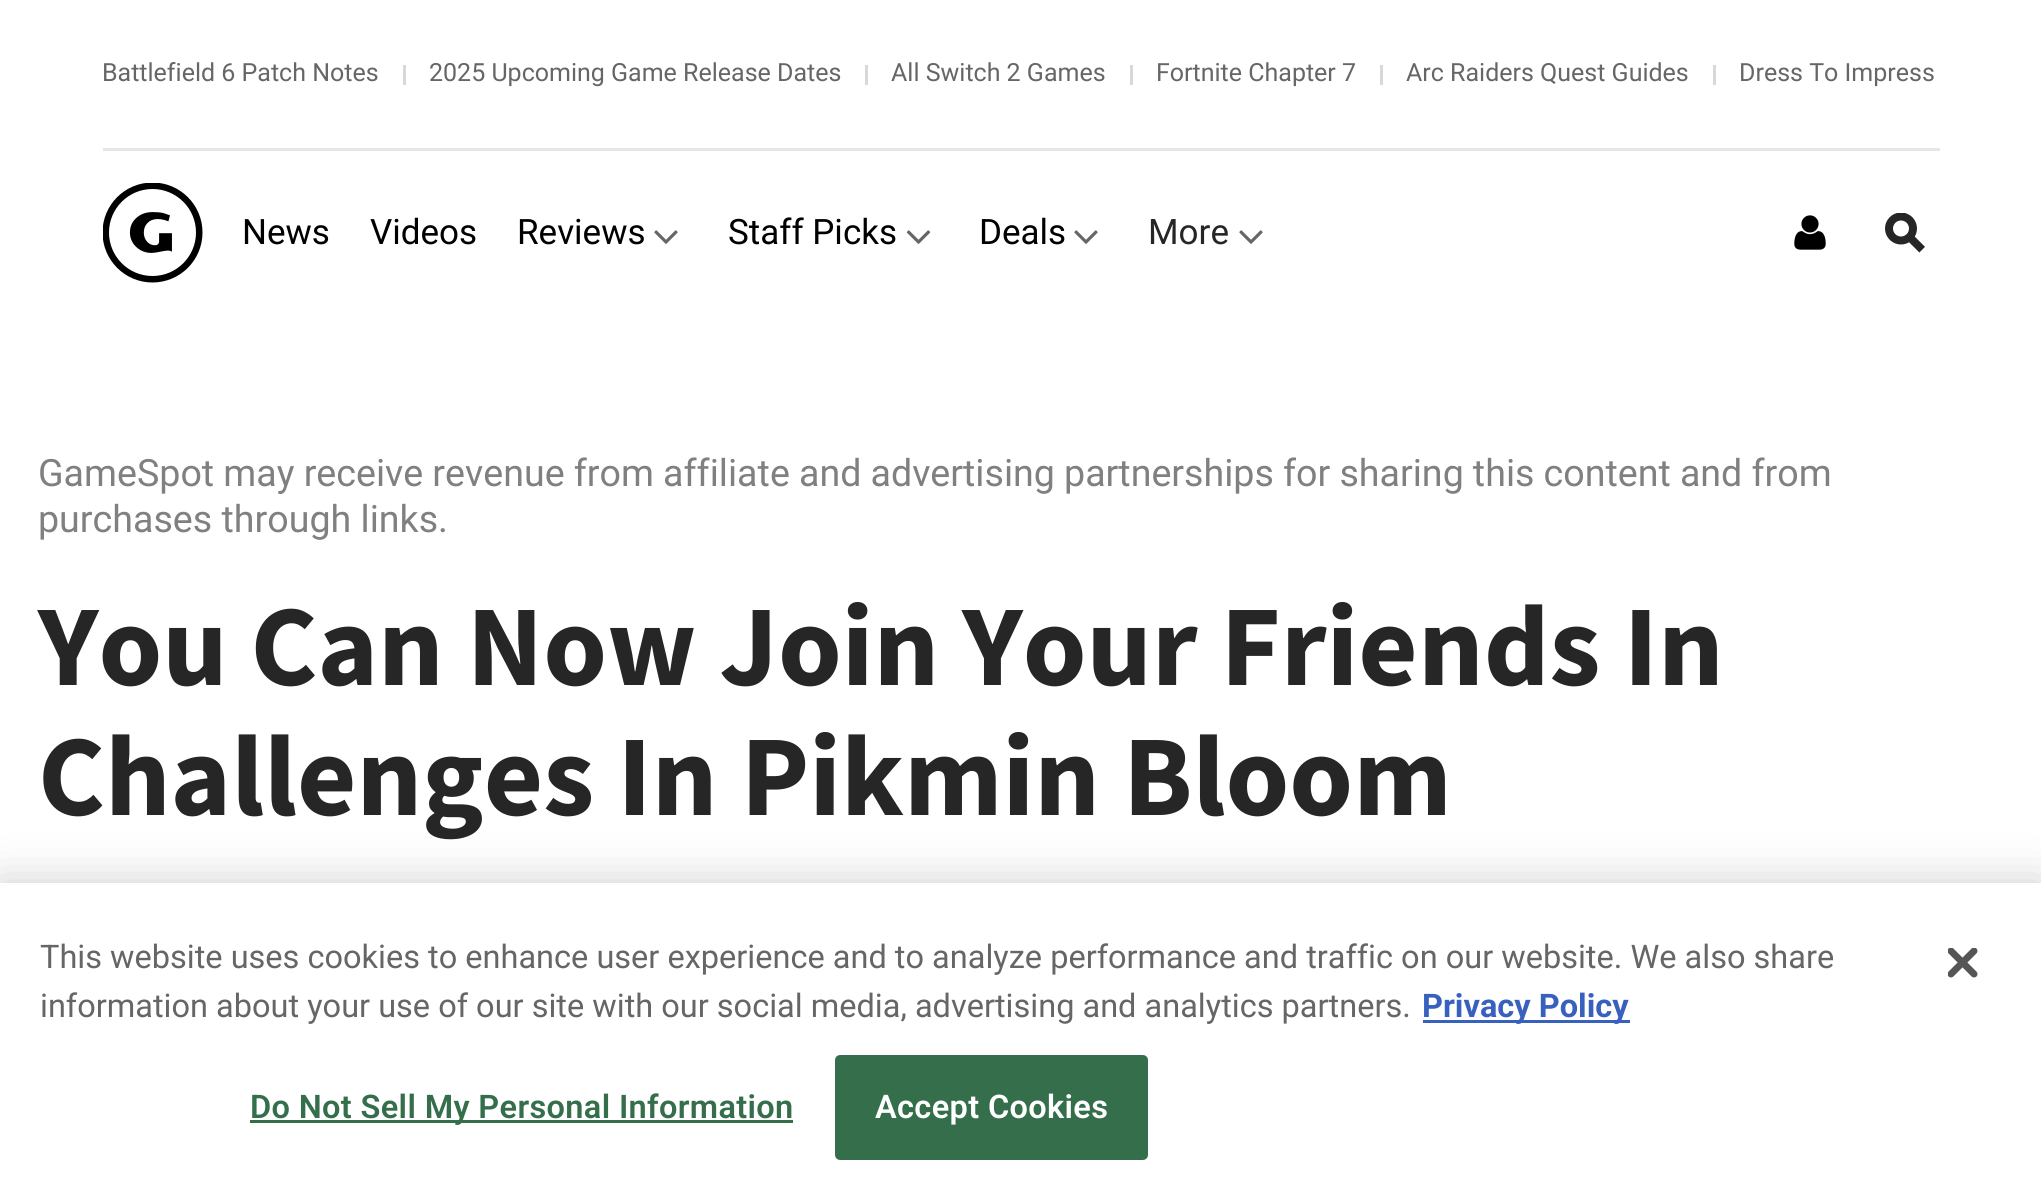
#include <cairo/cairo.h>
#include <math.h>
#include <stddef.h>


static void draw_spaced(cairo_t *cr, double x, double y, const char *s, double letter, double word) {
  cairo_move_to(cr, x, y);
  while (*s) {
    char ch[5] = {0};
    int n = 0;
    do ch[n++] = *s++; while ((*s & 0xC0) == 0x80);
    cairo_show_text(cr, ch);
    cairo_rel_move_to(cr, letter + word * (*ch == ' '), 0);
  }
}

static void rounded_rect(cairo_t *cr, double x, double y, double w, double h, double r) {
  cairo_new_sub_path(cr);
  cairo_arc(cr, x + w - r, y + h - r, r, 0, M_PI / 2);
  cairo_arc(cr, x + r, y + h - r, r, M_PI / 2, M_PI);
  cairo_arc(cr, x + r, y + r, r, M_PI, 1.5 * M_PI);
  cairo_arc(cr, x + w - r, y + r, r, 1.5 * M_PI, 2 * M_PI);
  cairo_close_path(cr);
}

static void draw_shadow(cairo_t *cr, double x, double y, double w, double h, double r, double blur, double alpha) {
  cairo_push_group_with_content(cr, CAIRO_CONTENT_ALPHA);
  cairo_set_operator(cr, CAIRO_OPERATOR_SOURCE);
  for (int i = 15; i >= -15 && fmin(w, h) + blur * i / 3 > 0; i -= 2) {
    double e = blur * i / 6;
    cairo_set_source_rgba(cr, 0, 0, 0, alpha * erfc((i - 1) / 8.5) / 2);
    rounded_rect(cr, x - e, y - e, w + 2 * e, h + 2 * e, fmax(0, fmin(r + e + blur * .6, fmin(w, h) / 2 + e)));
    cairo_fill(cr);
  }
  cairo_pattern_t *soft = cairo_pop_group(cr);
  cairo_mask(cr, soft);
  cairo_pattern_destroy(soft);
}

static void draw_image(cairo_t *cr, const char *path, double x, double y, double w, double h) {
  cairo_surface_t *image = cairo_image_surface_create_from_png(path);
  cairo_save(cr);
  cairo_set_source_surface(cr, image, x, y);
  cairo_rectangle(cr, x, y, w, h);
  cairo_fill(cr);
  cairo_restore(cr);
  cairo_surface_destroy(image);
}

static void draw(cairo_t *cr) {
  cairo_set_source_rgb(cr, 1, 1, 1);
  cairo_paint(cr);
  cairo_set_source_rgb(cr, 230 / 255.0, 230 / 255.0, 230 / 255.0);
  cairo_rectangle(cr, 103, 148, 1837, 3);
  cairo_fill(cr);
  cairo_set_source_rgb(cr, 216 / 255.0, 216 / 255.0, 216 / 255.0);
  cairo_rectangle(cr, 403, 65, 3, 20);
  cairo_fill(cr);
  cairo_rectangle(cr, 865, 65, 3, 20);
  cairo_fill(cr);
  cairo_rectangle(cr, 1130, 65, 3, 20);
  cairo_fill(cr);
  cairo_rectangle(cr, 1380, 65, 3, 20);
  cairo_fill(cr);
  cairo_rectangle(cr, 1713, 65, 3, 20);
  cairo_fill(cr);
  draw_image(cr, "images/1.png", 103, 183, 100, 100);
  draw_image(cr, "images/2.png", 654, 230, 24, 14);
  draw_image(cr, "images/3.png", 906, 230, 25, 14);
  draw_image(cr, "images/2.png", 1074, 230, 24, 14);
  draw_image(cr, "images/2.png", 1239, 230, 24, 14);
  draw_image(cr, "images/4.png", 1794, 215, 32, 35);
  draw_image(cr, "images/5.png", 1885, 213, 40, 40);
  cairo_set_source_rgb(cr, 0, 0, 0);
  draw_shadow(cr, 0, 883, 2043, 317, 0, 22.5, 0.2);
  cairo_set_source_rgb(cr, 1, 1, 1);
  cairo_rectangle(cr, 0, 883, 2041, 317);
  cairo_fill(cr);
  cairo_set_source_rgb(cr, 56 / 255.0, 96 / 255.0, 190 / 255.0);
  cairo_rectangle(cr, 1423, 1020, 207, 3);
  cairo_fill(cr);
  cairo_set_source_rgb(cr, 52 / 255.0, 110 / 255.0, 74 / 255.0);
  cairo_rectangle(cr, 250, 1120, 543, 3);
  cairo_fill(cr);
  rounded_rect(cr, 836.5, 1056.5, 310, 102, 3.5);
  cairo_fill_preserve(cr);
  cairo_set_line_width(cr, 3);
  cairo_stroke(cr);
  draw_image(cr, "images/6.png", 1948, 948, 30, 30);
  cairo_select_font_face(cr, "Roboto", CAIRO_FONT_SLANT_NORMAL, CAIRO_FONT_WEIGHT_NORMAL);
  cairo_set_font_size(cr, 25);
  cairo_set_source_rgb(cr, 102 / 255.0, 102 / 255.0, 102 / 255.0);
  cairo_move_to(cr, 102, 81);
  cairo_show_text(cr, "Battlefield 6 Patch Notes");
  cairo_move_to(cr, 429, 81);
  cairo_show_text(cr, "2025 Upcoming Game Release Dates");
  cairo_move_to(cr, 891, 81);
  cairo_show_text(cr, "All Switch 2 Games");
  cairo_move_to(cr, 1156, 81);
  cairo_show_text(cr, "Fortnite Chapter 7");
  cairo_move_to(cr, 1406, 81);
  cairo_show_text(cr, "Arc Raiders Quest Guides");
  cairo_move_to(cr, 1739, 81);
  cairo_show_text(cr, "Dress To Impress");
  cairo_set_font_size(cr, 35);
  cairo_set_source_rgb(cr, 0, 0, 0);
  cairo_move_to(cr, 242, 244);
  cairo_show_text(cr, "News");
  cairo_move_to(cr, 370, 244);
  cairo_show_text(cr, "Videos");
  cairo_move_to(cr, 517, 244);
  cairo_show_text(cr, "Reviews");
  cairo_move_to(cr, 728, 244);
  cairo_show_text(cr, "Staff Picks");
  cairo_move_to(cr, 979, 244);
  cairo_show_text(cr, "Deals");
  cairo_set_source_rgb(cr, 38 / 255.0, 38 / 255.0, 38 / 255.0);
  cairo_move_to(cr, 1148, 244);
  cairo_show_text(cr, "More");
  cairo_set_font_size(cr, 37.6);
  cairo_set_source_rgb(cr, 128 / 255.0, 128 / 255.0, 128 / 255.0);
  draw_spaced(cr, 38, 486, "GameSpot may receive revenue from affiliate and advertising partnerships for sharing this content and from", 0, -0.2);
  cairo_move_to(cr, 38, 532);
  cairo_show_text(cr, "purchases through links.");
  cairo_select_font_face(cr, "Source Sans Pro", CAIRO_FONT_SLANT_NORMAL, CAIRO_FONT_WEIGHT_BOLD);
  cairo_set_font_size(cr, 115);
  cairo_set_source_rgb(cr, 38 / 255.0, 38 / 255.0, 38 / 255.0);
  cairo_move_to(cr, 38, 685);
  cairo_show_text(cr, "You Can Now Join Your Friends In");
  cairo_move_to(cr, 38, 815);
  cairo_show_text(cr, "Challenges In Pikmin Bloom");
  cairo_select_font_face(cr, "Roboto", CAIRO_FONT_SLANT_NORMAL, CAIRO_FONT_WEIGHT_NORMAL);
  cairo_set_font_size(cr, 32.52);
  cairo_set_source_rgb(cr, 102 / 255.0, 102 / 255.0, 102 / 255.0);
  cairo_move_to(cr, 40, 968);
  cairo_show_text(cr, "This website uses cookies to enhance user experience and to analyze performance and traffic on our website. We also share");
  cairo_move_to(cr, 40, 1017);
  cairo_show_text(cr, "information about your use of our site with our social media, advertising and analytics partners.");
  cairo_select_font_face(cr, "Roboto", CAIRO_FONT_SLANT_NORMAL, CAIRO_FONT_WEIGHT_BOLD);
  cairo_set_source_rgb(cr, 56 / 255.0, 96 / 255.0, 190 / 255.0);
  cairo_move_to(cr, 1422, 1017);
  cairo_show_text(cr, "Privacy Policy");
  cairo_select_font_face(cr, "Roboto SemiBold", CAIRO_FONT_SLANT_NORMAL, CAIRO_FONT_WEIGHT_NORMAL);
  cairo_set_source_rgb(cr, 52 / 255.0, 110 / 255.0, 74 / 255.0);
  draw_spaced(cr, 250, 1118, "Do Not Sell My Personal Information", 0.35, 0);
  cairo_set_source_rgb(cr, 1, 1, 1);
  draw_spaced(cr, 875, 1118, "Accept Cookies", 0.35, 0);
}

int main(void) {
  cairo_surface_t *surface = cairo_image_surface_create(CAIRO_FORMAT_RGB24, 2041, 1200);
  cairo_t *cr = cairo_create(surface);
  cairo_font_options_t *options = cairo_font_options_create();
  cairo_font_options_set_hint_metrics(options, CAIRO_HINT_METRICS_OFF);
  cairo_font_options_set_hint_style(options, CAIRO_HINT_STYLE_NONE);
  cairo_set_font_options(cr, options);
  cairo_set_miter_limit(cr, 4);
  draw(cr);
  cairo_surface_write_to_png(surface, "out.png");
  cairo_font_options_destroy(options);
  cairo_destroy(cr);
  cairo_surface_destroy(surface);
  return 0;
}
